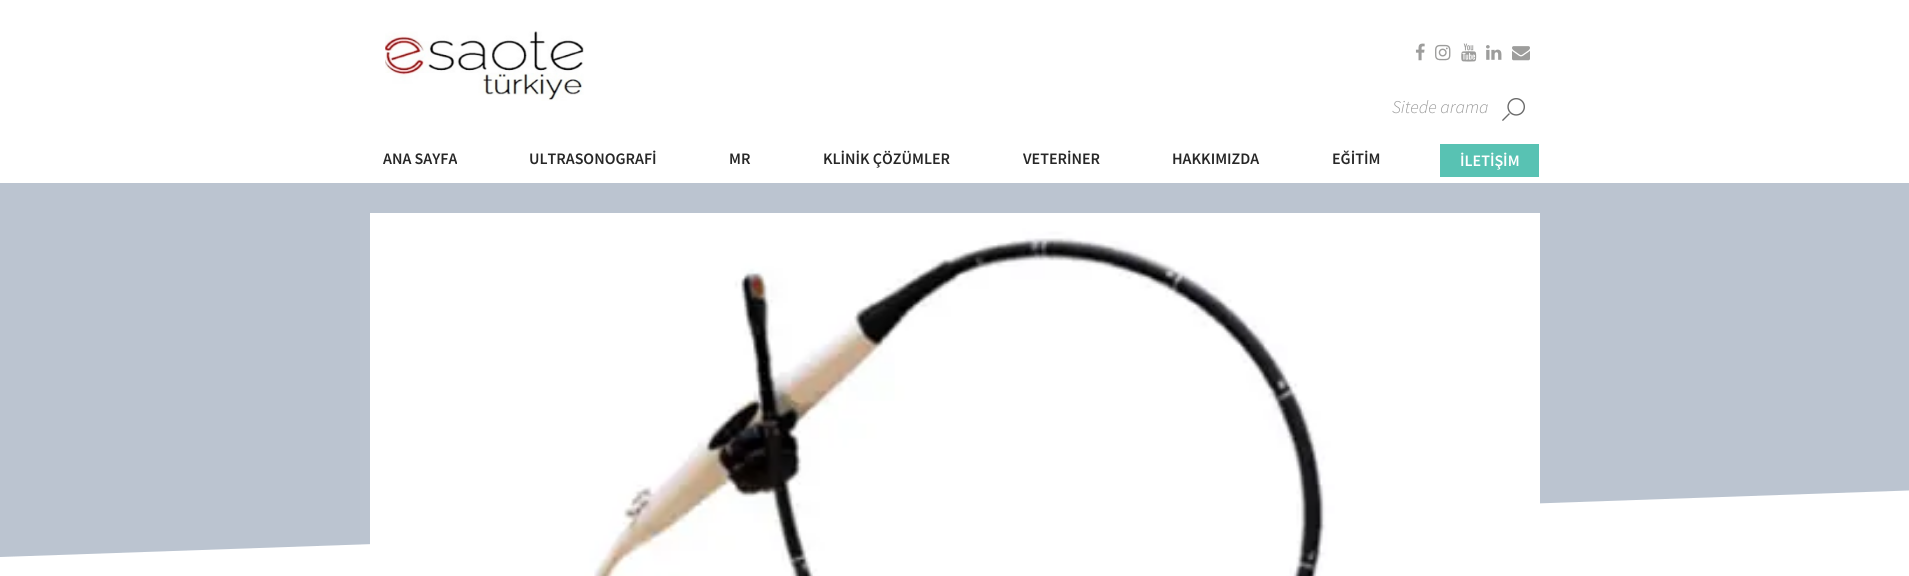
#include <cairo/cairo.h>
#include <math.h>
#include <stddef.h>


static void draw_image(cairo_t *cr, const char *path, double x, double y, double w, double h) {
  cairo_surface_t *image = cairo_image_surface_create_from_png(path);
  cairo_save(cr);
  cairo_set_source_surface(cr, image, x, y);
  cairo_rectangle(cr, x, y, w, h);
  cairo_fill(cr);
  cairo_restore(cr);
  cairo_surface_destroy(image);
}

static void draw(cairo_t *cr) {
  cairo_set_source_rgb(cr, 1, 1, 1);
  cairo_paint(cr);
  draw_image(cr, "images/1.png", 385, 31, 199, 70);
  draw_image(cr, "images/2.png", 1415, 43, 10, 18);
  draw_image(cr, "images/3.png", 1435, 44, 16, 17);
  draw_image(cr, "images/4.png", 1461, 43, 16, 19);
  draw_image(cr, "images/5.png", 1486, 45, 16, 15);
  draw_image(cr, "images/6.png", 1512, 46, 18, 15);
  draw_image(cr, "images/7.png", 1502, 98, 23, 23);
  cairo_set_source_rgb(cr, 88 / 255.0, 194 / 255.0, 179 / 255.0);
  cairo_rectangle(cr, 1440, 144, 99, 33);
  cairo_fill(cr);
  cairo_save(cr);
  cairo_rectangle(cr, 0, 183, 1909, 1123);
  cairo_clip(cr);
  cairo_set_source_rgb(cr, 187 / 255.0, 196 / 255.0, 208 / 255.0);
  cairo_new_path(cr);
  cairo_move_to(cr, -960, 190);
  cairo_line_to(cr, 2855, 57);
  cairo_line_to(cr, 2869, 457);
  cairo_line_to(cr, -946, 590);
  cairo_close_path(cr);
  cairo_fill(cr);
  cairo_restore(cr);
  draw_image(cr, "images/8.png", 370, 213, 1170, 363);
  cairo_select_font_face(cr, "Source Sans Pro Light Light", CAIRO_FONT_SLANT_ITALIC, CAIRO_FONT_WEIGHT_NORMAL);
  cairo_set_font_size(cr, 18);
  cairo_set_source_rgb(cr, 153 / 255.0, 153 / 255.0, 153 / 255.0);
  cairo_move_to(cr, 1392, 113);
  cairo_show_text(cr, "Sitede arama");
  cairo_select_font_face(cr, "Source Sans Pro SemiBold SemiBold", CAIRO_FONT_SLANT_NORMAL, CAIRO_FONT_WEIGHT_NORMAL);
  cairo_set_font_size(cr, 16);
  cairo_set_source_rgb(cr, 39 / 255.0, 39 / 255.0, 39 / 255.0);
  cairo_move_to(cr, 383, 164);
  cairo_show_text(cr, "ANA SAYFA");
  cairo_move_to(cr, 529, 164);
  cairo_show_text(cr, "ULTRASONOGRAFİ");
  cairo_move_to(cr, 729, 164);
  cairo_show_text(cr, "MR");
  cairo_move_to(cr, 823, 164);
  cairo_show_text(cr, "KLİNİK ÇÖZÜMLER");
  cairo_move_to(cr, 1023, 164);
  cairo_show_text(cr, "VETERİNER");
  cairo_move_to(cr, 1172, 164);
  cairo_show_text(cr, "HAKKIMIZDA");
  cairo_move_to(cr, 1332, 164);
  cairo_show_text(cr, "EĞİTİM");
  cairo_set_source_rgb(cr, 1, 1, 1);
  cairo_move_to(cr, 1460, 166);
  cairo_show_text(cr, "İLETİŞİM");
}

int main(void) {
  cairo_surface_t *surface = cairo_image_surface_create(CAIRO_FORMAT_RGB24, 1909, 576);
  cairo_t *cr = cairo_create(surface);
  cairo_font_options_t *options = cairo_font_options_create();
  cairo_font_options_set_hint_metrics(options, CAIRO_HINT_METRICS_OFF);
  cairo_font_options_set_hint_style(options, CAIRO_HINT_STYLE_NONE);
  cairo_set_font_options(cr, options);
  cairo_set_miter_limit(cr, 4);
  draw(cr);
  cairo_surface_write_to_png(surface, "out.png");
  cairo_font_options_destroy(options);
  cairo_destroy(cr);
  cairo_surface_destroy(surface);
  return 0;
}
